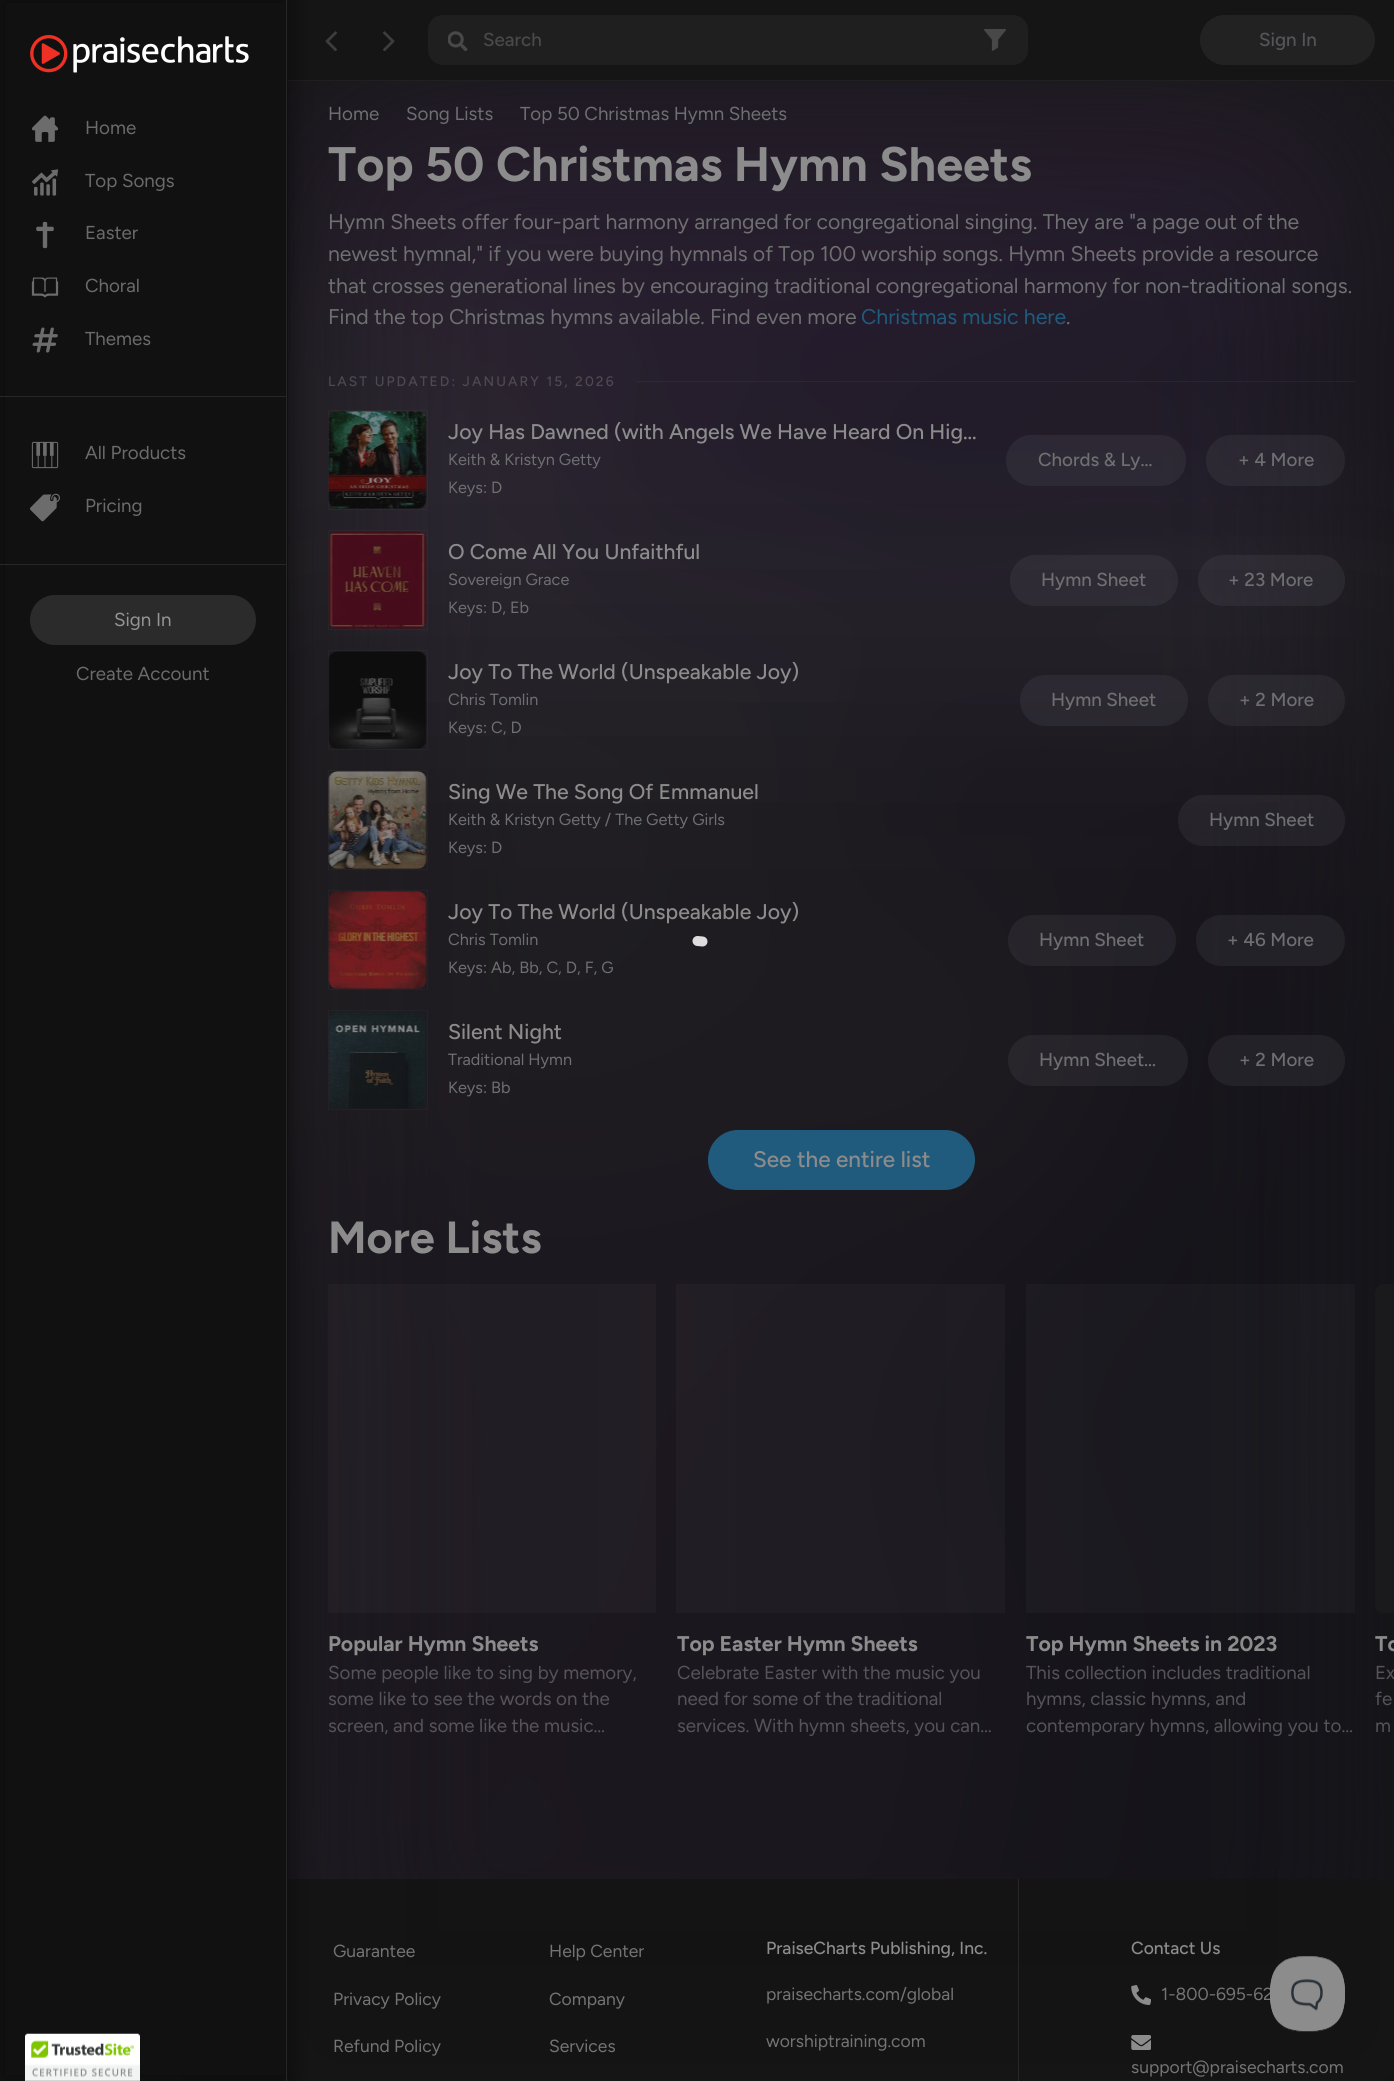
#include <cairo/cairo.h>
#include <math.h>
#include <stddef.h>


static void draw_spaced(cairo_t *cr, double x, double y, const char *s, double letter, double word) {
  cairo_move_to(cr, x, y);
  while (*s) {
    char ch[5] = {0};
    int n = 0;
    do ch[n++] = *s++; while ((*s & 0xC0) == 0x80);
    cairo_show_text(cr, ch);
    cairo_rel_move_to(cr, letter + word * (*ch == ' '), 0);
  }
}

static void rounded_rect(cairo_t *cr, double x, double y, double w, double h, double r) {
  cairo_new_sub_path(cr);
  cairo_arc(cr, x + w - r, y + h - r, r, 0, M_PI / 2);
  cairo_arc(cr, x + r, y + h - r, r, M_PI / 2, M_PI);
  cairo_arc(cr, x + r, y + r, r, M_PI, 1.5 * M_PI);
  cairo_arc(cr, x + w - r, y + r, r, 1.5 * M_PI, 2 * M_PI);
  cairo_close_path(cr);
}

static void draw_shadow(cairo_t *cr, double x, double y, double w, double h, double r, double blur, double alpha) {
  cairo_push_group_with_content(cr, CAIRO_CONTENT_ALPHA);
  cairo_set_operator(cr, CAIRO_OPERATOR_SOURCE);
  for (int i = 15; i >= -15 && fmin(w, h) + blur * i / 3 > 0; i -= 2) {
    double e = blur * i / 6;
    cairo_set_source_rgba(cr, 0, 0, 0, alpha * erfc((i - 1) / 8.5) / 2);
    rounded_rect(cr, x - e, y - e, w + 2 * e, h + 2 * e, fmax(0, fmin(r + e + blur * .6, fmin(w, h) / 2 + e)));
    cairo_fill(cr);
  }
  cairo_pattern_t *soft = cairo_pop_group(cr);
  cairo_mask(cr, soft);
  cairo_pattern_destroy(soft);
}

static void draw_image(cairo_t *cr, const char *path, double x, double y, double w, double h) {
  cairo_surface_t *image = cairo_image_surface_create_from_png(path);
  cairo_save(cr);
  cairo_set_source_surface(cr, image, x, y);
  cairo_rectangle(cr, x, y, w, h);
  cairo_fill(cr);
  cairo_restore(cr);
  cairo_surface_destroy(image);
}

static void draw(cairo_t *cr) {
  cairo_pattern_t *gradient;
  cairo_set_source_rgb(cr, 21 / 255.0, 21 / 255.0, 21 / 255.0);
  cairo_paint(cr);
  cairo_set_source_rgb(cr, 32 / 255.0, 32 / 255.0, 32 / 255.0);
  cairo_rectangle(cr, 288, 80, 1106, 1);
  cairo_fill(cr);
  draw_image(cr, "images/9.png", 325, 31, 12, 20);
  draw_image(cr, "images/13.png", 288, 81, 1106, 1798);
  cairo_set_source_rgb(cr, 18 / 255.0, 18 / 255.0, 18 / 255.0);
  draw_shadow(cr, 288, 686, 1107, 1395, 0, 100, 0.5);
  cairo_rectangle(cr, 328.5, 410.5, 99, 99);
  cairo_set_source_rgba(cr, 140 / 255.0, 140 / 255.0, 140 / 255.0, 0.06);
  cairo_set_line_width(cr, 1);
  cairo_stroke(cr);
  draw_image(cr, "images/14.png", 328, 411, 99, 98);
  cairo_rectangle(cr, 328.5, 530.5, 99, 99);
  cairo_stroke(cr);
  draw_image(cr, "images/15.png", 328, 531, 99, 98);
  cairo_rectangle(cr, 328.5, 650.5, 99, 99);
  cairo_stroke(cr);
  draw_image(cr, "images/16.png", 328, 651, 99, 98);
  cairo_rectangle(cr, 328.5, 770.5, 99, 99);
  cairo_stroke(cr);
  draw_image(cr, "images/17.png", 328, 771, 99, 98);
  cairo_rectangle(cr, 328.5, 890.5, 99, 99);
  cairo_stroke(cr);
  draw_image(cr, "images/18.png", 328, 891, 99, 98);
  cairo_rectangle(cr, 328.5, 1010.5, 99, 99);
  cairo_stroke(cr);
  draw_image(cr, "images/19.png", 328, 1011, 99, 98);
  gradient = cairo_pattern_create_linear(328, 1284, 657, 1284);
  cairo_pattern_add_color_stop_rgba(gradient, 0, 140 / 255.0, 140 / 255.0, 140 / 255.0, 0.05);
  cairo_pattern_add_color_stop_rgba(gradient, 0.5, 140 / 255.0, 140 / 255.0, 140 / 255.0, 0.04);
  cairo_pattern_add_color_stop_rgba(gradient, 1, 140 / 255.0, 140 / 255.0, 140 / 255.0, 0.05);
  cairo_set_source(cr, gradient);
  cairo_pattern_destroy(gradient);
  cairo_rectangle(cr, 328, 1284, 328, 329);
  cairo_fill(cr);
  cairo_set_source_rgb(cr, 0, 0, 0);
  draw_shadow(cr, 0, -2, 288, 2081, 0, 14, 0.5);
  cairo_set_source_rgb(cr, 17 / 255.0, 17 / 255.0, 17 / 255.0);
  cairo_rectangle(cr, 5, 3, 280, 2072);
  cairo_fill(cr);
  cairo_set_source_rgb(cr, 39 / 255.0, 39 / 255.0, 39 / 255.0);
  cairo_rectangle(cr, 286, 0, 1, 2081);
  cairo_fill(cr);
  draw_image(cr, "images/1.png", 30, 35, 219, 38);
  cairo_rectangle(cr, 0, 396, 286, 1);
  cairo_fill(cr);
  draw_image(cr, "images/2.png", 32, 115, 27, 27);
  draw_image(cr, "images/3.png", 32, 169, 26, 27);
  draw_image(cr, "images/4.png", 36, 221, 18, 28);
  draw_image(cr, "images/5.png", 31, 277, 28, 21);
  draw_image(cr, "images/6.png", 32, 327, 26, 26);
  cairo_rectangle(cr, 0, 564, 286, 1);
  cairo_fill(cr);
  draw_image(cr, "images/7.png", 31, 441, 28, 28);
  draw_image(cr, "images/8.png", 30, 493, 30, 29);
  cairo_set_source_rgb(cr, 43 / 255.0, 43 / 255.0, 44 / 255.0);
  rounded_rect(cr, 30, 595, 226, 50, 25);
  cairo_fill(cr);
  draw_image(cr, "images/10.png", 383, 31, 12, 20);
  cairo_set_source_rgb(cr, 31 / 255.0, 31 / 255.0, 31 / 255.0);
  rounded_rect(cr, 428, 15, 600, 50, 15);
  cairo_fill(cr);
  draw_image(cr, "images/11.png", 448, 31, 20, 20);
  draw_image(cr, "images/12.png", 984, 29, 22, 22);
  cairo_set_source_rgb(cr, 34 / 255.0, 34 / 255.0, 35 / 255.0);
  rounded_rect(cr, 1200, 15, 175, 50, 25);
  cairo_fill(cr);
  cairo_set_source_rgba(cr, 113 / 255.0, 113 / 255.0, 113 / 255.0, 0.12);
  cairo_rectangle(cr, 636, 381, 719, 1);
  cairo_fill(cr);
  cairo_set_source_rgba(cr, 131 / 255.0, 130 / 255.0, 133 / 255.0, 0.12);
  rounded_rect(cr, 1006, 435, 180, 51, 25.5);
  cairo_fill(cr);
  rounded_rect(cr, 1206, 435, 139, 51, 25.5);
  cairo_fill(cr);
  rounded_rect(cr, 1010, 555, 168, 51, 25.5);
  cairo_fill(cr);
  rounded_rect(cr, 1198, 555, 147, 51, 25.5);
  cairo_fill(cr);
  rounded_rect(cr, 1020, 675, 168, 51, 25.5);
  cairo_fill(cr);
  rounded_rect(cr, 1208, 675, 137, 51, 25.5);
  cairo_fill(cr);
  rounded_rect(cr, 1178, 795, 167, 51, 25.5);
  cairo_fill(cr);
  rounded_rect(cr, 1008, 915, 168, 51, 25.5);
  cairo_fill(cr);
  rounded_rect(cr, 1196, 915, 149, 51, 25.5);
  cairo_fill(cr);
  rounded_rect(cr, 1008, 1035, 180, 51, 25.5);
  cairo_fill(cr);
  rounded_rect(cr, 1208, 1035, 137, 51, 25.5);
  cairo_fill(cr);
  cairo_set_source_rgb(cr, 32 / 255.0, 91 / 255.0, 126 / 255.0);
  rounded_rect(cr, 708, 1130, 267, 60, 30);
  cairo_fill(cr);
  gradient = cairo_pattern_create_linear(676, 1284, 1005, 1284);
  cairo_pattern_add_color_stop_rgba(gradient, 0, 140 / 255.0, 140 / 255.0, 140 / 255.0, 0.05);
  cairo_pattern_add_color_stop_rgba(gradient, 0.5, 140 / 255.0, 140 / 255.0, 140 / 255.0, 0.04);
  cairo_pattern_add_color_stop_rgba(gradient, 1, 140 / 255.0, 140 / 255.0, 140 / 255.0, 0.05);
  cairo_set_source(cr, gradient);
  cairo_pattern_destroy(gradient);
  cairo_rectangle(cr, 676, 1284, 329, 329);
  cairo_fill(cr);
  gradient = cairo_pattern_create_linear(1026, 1284, 1355, 1284);
  cairo_pattern_add_color_stop_rgba(gradient, 0, 140 / 255.0, 140 / 255.0, 140 / 255.0, 0.05);
  cairo_pattern_add_color_stop_rgba(gradient, 0.5, 140 / 255.0, 140 / 255.0, 140 / 255.0, 0.04);
  cairo_pattern_add_color_stop_rgba(gradient, 1, 140 / 255.0, 140 / 255.0, 140 / 255.0, 0.05);
  cairo_set_source(cr, gradient);
  cairo_pattern_destroy(gradient);
  cairo_rectangle(cr, 1026, 1284, 329, 329);
  cairo_fill(cr);
  cairo_save(cr);
  rounded_rect(cr, 1375, 1284, 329, 330, 10);
  cairo_clip(cr);
  gradient = cairo_pattern_create_linear(1375, 1284, 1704, 1284);
  cairo_pattern_add_color_stop_rgba(gradient, 0, 26 / 255.0, 26 / 255.0, 29 / 255.0, 1);
  cairo_pattern_add_color_stop_rgba(gradient, 0.5, 25 / 255.0, 24 / 255.0, 28 / 255.0, 1);
  cairo_pattern_add_color_stop_rgba(gradient, 1, 26 / 255.0, 26 / 255.0, 29 / 255.0, 1);
  cairo_set_source(cr, gradient);
  cairo_pattern_destroy(gradient);
  cairo_new_path(cr);
  cairo_move_to(cr, 1385, 1284);
  cairo_line_to(cr, 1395, 1284);
  cairo_line_to(cr, 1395, 1613);
  cairo_line_to(cr, 1375, 1613);
  cairo_line_to(cr, 1375, 1294);
  cairo_curve_to(cr, 1375, 1288.5, 1379.5, 1284, 1385, 1284);
  cairo_close_path(cr);
  cairo_fill(cr);
  cairo_restore(cr);
  cairo_set_source_rgb(cr, 39 / 255.0, 39 / 255.0, 39 / 255.0);
  cairo_rectangle(cr, 1018, 1879, 1, 202);
  cairo_fill(cr);
  draw_image(cr, "images/20.png", 1131, 1985, 20, 20);
  draw_image(cr, "images/21.png", 1131, 2035, 20, 15);
  cairo_new_path(cr);
  cairo_move_to(cr, 697.5, 941);
  cairo_line_to(cr, 702.5, 941.5);
  cairo_set_source_rgb(cr, 221 / 255.0, 221 / 255.0, 221 / 255.0);
  cairo_set_line_width(cr, 10);
  cairo_set_line_cap(cr, CAIRO_LINE_CAP_ROUND);
  cairo_stroke(cr);
  draw_image(cr, "images/23.png", 25, 2033, 115, 48);
  cairo_select_font_face(cr, "Figtree", CAIRO_FONT_SLANT_NORMAL, CAIRO_FONT_WEIGHT_NORMAL);
  cairo_set_font_size(cr, 18.75);
  cairo_set_source_rgb(cr, 107 / 255.0, 107 / 255.0, 107 / 255.0);
  cairo_move_to(cr, 85, 134);
  cairo_show_text(cr, "Home");
  cairo_move_to(cr, 85, 187);
  cairo_show_text(cr, "Top Songs");
  cairo_move_to(cr, 85, 239);
  cairo_show_text(cr, "Easter");
  cairo_move_to(cr, 85, 292);
  cairo_show_text(cr, "Choral");
  cairo_move_to(cr, 85, 345);
  cairo_show_text(cr, "Themes");
  cairo_move_to(cr, 85, 459);
  cairo_show_text(cr, "All Products");
  cairo_move_to(cr, 85, 512);
  cairo_show_text(cr, "Pricing");
  cairo_set_source_rgb(cr, 149 / 255.0, 149 / 255.0, 150 / 255.0);
  cairo_move_to(cr, 114, 626);
  cairo_show_text(cr, "Sign In");
  cairo_set_source_rgb(cr, 107 / 255.0, 107 / 255.0, 107 / 255.0);
  cairo_move_to(cr, 76, 680);
  cairo_show_text(cr, "Create Account");
  cairo_select_font_face(cr, "Figtree Medium", CAIRO_FONT_SLANT_NORMAL, CAIRO_FONT_WEIGHT_NORMAL);
  cairo_set_source_rgb(cr, 73 / 255.0, 73 / 255.0, 73 / 255.0);
  cairo_move_to(cr, 483, 46);
  cairo_show_text(cr, "Search");
  cairo_set_source_rgb(cr, 86 / 255.0, 84 / 255.0, 89 / 255.0);
  cairo_move_to(cr, 1259, 46);
  cairo_show_text(cr, "Sign In");
  cairo_select_font_face(cr, "Figtree", CAIRO_FONT_SLANT_NORMAL, CAIRO_FONT_WEIGHT_NORMAL);
  cairo_set_source_rgb(cr, 110 / 255.0, 111 / 255.0, 113 / 255.0);
  cairo_move_to(cr, 328, 120);
  cairo_show_text(cr, "Home");
  cairo_move_to(cr, 406, 120);
  cairo_show_text(cr, "Song Lists");
  cairo_move_to(cr, 520, 120);
  cairo_show_text(cr, "Top 50 Christmas Hymn Sheets");
  cairo_select_font_face(cr, "Figtree", CAIRO_FONT_SLANT_NORMAL, CAIRO_FONT_WEIGHT_BOLD);
  cairo_set_font_size(cr, 48.4);
  cairo_set_source_rgb(cr, 140 / 255.0, 140 / 255.0, 140 / 255.0);
  cairo_move_to(cr, 328, 181);
  cairo_show_text(cr, "Top 50 Christmas Hymn Sheets");
  cairo_select_font_face(cr, "Figtree", CAIRO_FONT_SLANT_NORMAL, CAIRO_FONT_WEIGHT_NORMAL);
  cairo_set_font_size(cr, 21.25);
  cairo_set_source_rgb(cr, 110 / 255.0, 111 / 255.0, 113 / 255.0);
  cairo_move_to(cr, 328, 229);
  cairo_show_text(cr, "Hymn Sheets offer four-part harmony arranged for congregational singing. They are \"a page out of the");
  cairo_move_to(cr, 328, 261);
  cairo_show_text(cr, "newest hymnal,\" if you were buying hymnals of Top 100 worship songs. Hymn Sheets provide a resource");
  cairo_move_to(cr, 328, 293);
  cairo_show_text(cr, "that crosses generational lines by encouraging traditional congregational harmony for non-traditional songs.");
  cairo_move_to(cr, 328, 324);
  cairo_show_text(cr, "Find the top Christmas hymns available. Find even more");
  cairo_set_source_rgb(cr, 32 / 255.0, 91 / 255.0, 126 / 255.0);
  cairo_move_to(cr, 861, 324);
  cairo_show_text(cr, "Christmas music here");
  cairo_set_source_rgb(cr, 110 / 255.0, 111 / 255.0, 113 / 255.0);
  cairo_move_to(cr, 1066, 324);
  cairo_show_text(cr, ".");
  cairo_select_font_face(cr, "Figtree Medium", CAIRO_FONT_SLANT_NORMAL, CAIRO_FONT_WEIGHT_NORMAL);
  cairo_set_font_size(cr, 13.75);
  cairo_set_source_rgb(cr, 78 / 255.0, 74 / 255.0, 81 / 255.0);
  draw_spaced(cr, 328, 386, "LAST UPDATED: JANUARY 15, 2026", 2.1, 0);
  cairo_set_font_size(cr, 21.25);
  cairo_set_source_rgb(cr, 140 / 255.0, 140 / 255.0, 140 / 255.0);
  cairo_move_to(cr, 448, 439);
  cairo_show_text(cr, "Joy Has Dawned (with Angels We Have Heard On Hig…");
  cairo_select_font_face(cr, "Figtree", CAIRO_FONT_SLANT_NORMAL, CAIRO_FONT_WEIGHT_NORMAL);
  cairo_set_font_size(cr, 16.25);
  cairo_set_source_rgb(cr, 110 / 255.0, 111 / 255.0, 113 / 255.0);
  cairo_move_to(cr, 448, 465);
  cairo_show_text(cr, "Keith & Kristyn Getty");
  cairo_move_to(cr, 448, 493);
  cairo_show_text(cr, "Keys: D");
  cairo_select_font_face(cr, "Figtree Medium", CAIRO_FONT_SLANT_NORMAL, CAIRO_FONT_WEIGHT_NORMAL);
  cairo_set_font_size(cr, 18.75);
  cairo_move_to(cr, 1038, 466);
  cairo_show_text(cr, "Chords & Ly…");
  cairo_move_to(cr, 1238, 466);
  cairo_show_text(cr, "+ 4 More");
  cairo_set_font_size(cr, 21.25);
  cairo_set_source_rgb(cr, 140 / 255.0, 140 / 255.0, 140 / 255.0);
  cairo_move_to(cr, 448, 559);
  cairo_show_text(cr, "O Come All You Unfaithful");
  cairo_select_font_face(cr, "Figtree", CAIRO_FONT_SLANT_NORMAL, CAIRO_FONT_WEIGHT_NORMAL);
  cairo_set_font_size(cr, 16.25);
  cairo_set_source_rgb(cr, 110 / 255.0, 111 / 255.0, 113 / 255.0);
  cairo_move_to(cr, 448, 585);
  cairo_show_text(cr, "Sovereign Grace");
  cairo_move_to(cr, 448, 613);
  cairo_show_text(cr, "Keys: D, Eb");
  cairo_select_font_face(cr, "Figtree Medium", CAIRO_FONT_SLANT_NORMAL, CAIRO_FONT_WEIGHT_NORMAL);
  cairo_set_font_size(cr, 18.75);
  cairo_move_to(cr, 1041, 586);
  cairo_show_text(cr, "Hymn Sheet");
  cairo_move_to(cr, 1228, 586);
  cairo_show_text(cr, "+ 23 More");
  cairo_set_font_size(cr, 21.25);
  cairo_set_source_rgb(cr, 140 / 255.0, 140 / 255.0, 140 / 255.0);
  cairo_move_to(cr, 448, 679);
  cairo_show_text(cr, "Joy To The World (Unspeakable Joy)");
  cairo_select_font_face(cr, "Figtree", CAIRO_FONT_SLANT_NORMAL, CAIRO_FONT_WEIGHT_NORMAL);
  cairo_set_font_size(cr, 16.25);
  cairo_set_source_rgb(cr, 110 / 255.0, 111 / 255.0, 113 / 255.0);
  cairo_move_to(cr, 448, 705);
  cairo_show_text(cr, "Chris Tomlin");
  cairo_move_to(cr, 448, 733);
  cairo_show_text(cr, "Keys: C, D");
  cairo_select_font_face(cr, "Figtree Medium", CAIRO_FONT_SLANT_NORMAL, CAIRO_FONT_WEIGHT_NORMAL);
  cairo_set_font_size(cr, 18.75);
  cairo_move_to(cr, 1051, 706);
  cairo_show_text(cr, "Hymn Sheet");
  cairo_move_to(cr, 1239, 706);
  cairo_show_text(cr, "+ 2 More");
  cairo_set_font_size(cr, 21.25);
  cairo_set_source_rgb(cr, 140 / 255.0, 140 / 255.0, 140 / 255.0);
  cairo_move_to(cr, 448, 799);
  cairo_show_text(cr, "Sing We The Song Of Emmanuel");
  cairo_select_font_face(cr, "Figtree", CAIRO_FONT_SLANT_NORMAL, CAIRO_FONT_WEIGHT_NORMAL);
  cairo_set_font_size(cr, 16.25);
  cairo_set_source_rgb(cr, 110 / 255.0, 111 / 255.0, 113 / 255.0);
  cairo_move_to(cr, 448, 825);
  cairo_show_text(cr, "Keith & Kristyn Getty / The Getty Girls");
  cairo_move_to(cr, 448, 853);
  cairo_show_text(cr, "Keys: D");
  cairo_select_font_face(cr, "Figtree Medium", CAIRO_FONT_SLANT_NORMAL, CAIRO_FONT_WEIGHT_NORMAL);
  cairo_set_font_size(cr, 18.75);
  cairo_move_to(cr, 1209, 826);
  cairo_show_text(cr, "Hymn Sheet");
  cairo_set_font_size(cr, 21.25);
  cairo_set_source_rgb(cr, 140 / 255.0, 140 / 255.0, 140 / 255.0);
  cairo_move_to(cr, 448, 919);
  cairo_show_text(cr, "Joy To The World (Unspeakable Joy)");
  cairo_select_font_face(cr, "Figtree", CAIRO_FONT_SLANT_NORMAL, CAIRO_FONT_WEIGHT_NORMAL);
  cairo_set_font_size(cr, 16.25);
  cairo_set_source_rgb(cr, 110 / 255.0, 111 / 255.0, 113 / 255.0);
  cairo_move_to(cr, 448, 945);
  cairo_show_text(cr, "Chris Tomlin");
  cairo_move_to(cr, 448, 973);
  cairo_show_text(cr, "Keys: Ab, Bb, C, D, F, G");
  cairo_select_font_face(cr, "Figtree Medium", CAIRO_FONT_SLANT_NORMAL, CAIRO_FONT_WEIGHT_NORMAL);
  cairo_set_font_size(cr, 18.75);
  cairo_move_to(cr, 1039, 946);
  cairo_show_text(cr, "Hymn Sheet");
  cairo_move_to(cr, 1227, 946);
  cairo_show_text(cr, "+ 46 More");
  cairo_set_font_size(cr, 21.25);
  cairo_set_source_rgb(cr, 140 / 255.0, 140 / 255.0, 140 / 255.0);
  cairo_move_to(cr, 448, 1039);
  cairo_show_text(cr, "Silent Night");
  cairo_select_font_face(cr, "Figtree", CAIRO_FONT_SLANT_NORMAL, CAIRO_FONT_WEIGHT_NORMAL);
  cairo_set_font_size(cr, 16.25);
  cairo_set_source_rgb(cr, 110 / 255.0, 111 / 255.0, 113 / 255.0);
  cairo_move_to(cr, 448, 1065);
  cairo_show_text(cr, "Traditional Hymn");
  cairo_move_to(cr, 448, 1093);
  cairo_show_text(cr, "Keys: Bb");
  cairo_select_font_face(cr, "Figtree Medium", CAIRO_FONT_SLANT_NORMAL, CAIRO_FONT_WEIGHT_NORMAL);
  cairo_set_font_size(cr, 18.75);
  cairo_move_to(cr, 1039, 1066);
  cairo_show_text(cr, "Hymn Sheet…");
  cairo_move_to(cr, 1239, 1066);
  cairo_show_text(cr, "+ 2 More");
  cairo_set_font_size(cr, 22.5);
  cairo_set_source_rgb(cr, 140 / 255.0, 140 / 255.0, 140 / 255.0);
  cairo_move_to(cr, 753, 1167);
  cairo_show_text(cr, "See the entire list");
  cairo_select_font_face(cr, "Figtree", CAIRO_FONT_SLANT_NORMAL, CAIRO_FONT_WEIGHT_BOLD);
  cairo_set_font_size(cr, 45);
  cairo_move_to(cr, 328, 1253);
  cairo_show_text(cr, "More Lists");
  cairo_set_font_size(cr, 21.25);
  cairo_move_to(cr, 328, 1651);
  cairo_show_text(cr, "Popular Hymn Sheets");
  cairo_select_font_face(cr, "Figtree", CAIRO_FONT_SLANT_NORMAL, CAIRO_FONT_WEIGHT_NORMAL);
  cairo_set_font_size(cr, 18.75);
  cairo_set_source_rgb(cr, 86 / 255.0, 84 / 255.0, 89 / 255.0);
  cairo_move_to(cr, 328, 1679);
  cairo_show_text(cr, "Some people like to sing by memory,");
  cairo_move_to(cr, 328, 1705);
  cairo_show_text(cr, "some like to see the words on the");
  cairo_move_to(cr, 328, 1732);
  cairo_show_text(cr, "screen, and some like the music…");
  cairo_select_font_face(cr, "Figtree", CAIRO_FONT_SLANT_NORMAL, CAIRO_FONT_WEIGHT_BOLD);
  cairo_set_font_size(cr, 21.25);
  cairo_set_source_rgb(cr, 140 / 255.0, 140 / 255.0, 140 / 255.0);
  cairo_move_to(cr, 677, 1651);
  cairo_show_text(cr, "Top Easter Hymn Sheets");
  cairo_select_font_face(cr, "Figtree", CAIRO_FONT_SLANT_NORMAL, CAIRO_FONT_WEIGHT_NORMAL);
  cairo_set_font_size(cr, 18.75);
  cairo_set_source_rgb(cr, 86 / 255.0, 84 / 255.0, 89 / 255.0);
  cairo_move_to(cr, 677, 1679);
  cairo_show_text(cr, "Celebrate Easter with the music you");
  cairo_move_to(cr, 677, 1705);
  cairo_show_text(cr, "need for some of the traditional");
  cairo_move_to(cr, 677, 1732);
  cairo_show_text(cr, "services. With hymn sheets, you can…");
  cairo_select_font_face(cr, "Figtree", CAIRO_FONT_SLANT_NORMAL, CAIRO_FONT_WEIGHT_BOLD);
  cairo_set_font_size(cr, 21.25);
  cairo_set_source_rgb(cr, 140 / 255.0, 140 / 255.0, 140 / 255.0);
  cairo_move_to(cr, 1026, 1651);
  cairo_show_text(cr, "Top Hymn Sheets in 2023");
  cairo_select_font_face(cr, "Figtree", CAIRO_FONT_SLANT_NORMAL, CAIRO_FONT_WEIGHT_NORMAL);
  cairo_set_font_size(cr, 18.75);
  cairo_set_source_rgb(cr, 86 / 255.0, 84 / 255.0, 89 / 255.0);
  cairo_move_to(cr, 1026, 1679);
  cairo_show_text(cr, "This collection includes traditional");
  cairo_move_to(cr, 1026, 1705);
  cairo_show_text(cr, "hymns, classic hymns, and");
  cairo_move_to(cr, 1026, 1732);
  cairo_show_text(cr, "contemporary hymns, allowing you to…");
  cairo_select_font_face(cr, "Figtree", CAIRO_FONT_SLANT_NORMAL, CAIRO_FONT_WEIGHT_BOLD);
  cairo_set_font_size(cr, 21.25);
  cairo_set_source_rgb(cr, 140 / 255.0, 140 / 255.0, 140 / 255.0);
  cairo_move_to(cr, 1375, 1651);
  cairo_show_text(cr, "To");
  cairo_select_font_face(cr, "Figtree", CAIRO_FONT_SLANT_NORMAL, CAIRO_FONT_WEIGHT_NORMAL);
  cairo_set_font_size(cr, 18.75);
  cairo_set_source_rgb(cr, 86 / 255.0, 84 / 255.0, 89 / 255.0);
  cairo_move_to(cr, 1375, 1679);
  cairo_show_text(cr, "Ex");
  cairo_move_to(cr, 1375, 1705);
  cairo_show_text(cr, "fe");
  cairo_move_to(cr, 1375, 1732);
  cairo_show_text(cr, "m");
  cairo_set_font_size(cr, 17.5);
  cairo_set_source_rgb(cr, 116 / 255.0, 116 / 255.0, 116 / 255.0);
  cairo_move_to(cr, 333, 1957);
  cairo_show_text(cr, "Guarantee");
  cairo_move_to(cr, 333, 2005);
  cairo_show_text(cr, "Privacy Policy");
  cairo_move_to(cr, 333, 2052);
  cairo_show_text(cr, "Refund Policy");
  cairo_move_to(cr, 549, 1957);
  cairo_show_text(cr, "Help Center");
  cairo_move_to(cr, 549, 2005);
  cairo_show_text(cr, "Company");
  cairo_move_to(cr, 549, 2052);
  cairo_show_text(cr, "Services");
  cairo_select_font_face(cr, "Figtree Medium", CAIRO_FONT_SLANT_NORMAL, CAIRO_FONT_WEIGHT_NORMAL);
  cairo_set_source_rgb(cr, 140 / 255.0, 140 / 255.0, 140 / 255.0);
  cairo_move_to(cr, 766, 1954);
  cairo_show_text(cr, "PraiseCharts Publishing, Inc.");
  cairo_select_font_face(cr, "Figtree", CAIRO_FONT_SLANT_NORMAL, CAIRO_FONT_WEIGHT_NORMAL);
  cairo_set_source_rgb(cr, 116 / 255.0, 116 / 255.0, 116 / 255.0);
  cairo_move_to(cr, 766, 2000);
  cairo_show_text(cr, "praisecharts.com/global");
  cairo_move_to(cr, 766, 2047);
  cairo_show_text(cr, "worshiptraining.com");
  cairo_select_font_face(cr, "Figtree Medium", CAIRO_FONT_SLANT_NORMAL, CAIRO_FONT_WEIGHT_NORMAL);
  cairo_set_source_rgb(cr, 140 / 255.0, 140 / 255.0, 140 / 255.0);
  cairo_move_to(cr, 1131, 1954);
  cairo_show_text(cr, "Contact Us");
  cairo_select_font_face(cr, "Figtree", CAIRO_FONT_SLANT_NORMAL, CAIRO_FONT_WEIGHT_NORMAL);
  cairo_set_source_rgb(cr, 116 / 255.0, 116 / 255.0, 116 / 255.0);
  cairo_move_to(cr, 1161, 2000);
  cairo_show_text(cr, "1-800-695-62");
  cairo_move_to(cr, 1131, 2073);
  cairo_show_text(cr, "support@praisecharts.com");
  draw_image(cr, "images/22.png", 1270, 1956, 75, 76);
}

int main(void) {
  cairo_surface_t *surface = cairo_image_surface_create(CAIRO_FORMAT_RGB24, 1394, 2081);
  cairo_t *cr = cairo_create(surface);
  cairo_font_options_t *options = cairo_font_options_create();
  cairo_font_options_set_hint_metrics(options, CAIRO_HINT_METRICS_OFF);
  cairo_font_options_set_hint_style(options, CAIRO_HINT_STYLE_NONE);
  cairo_set_font_options(cr, options);
  cairo_set_miter_limit(cr, 4);
  draw(cr);
  cairo_surface_write_to_png(surface, "out.png");
  cairo_font_options_destroy(options);
  cairo_destroy(cr);
  cairo_surface_destroy(surface);
  return 0;
}
